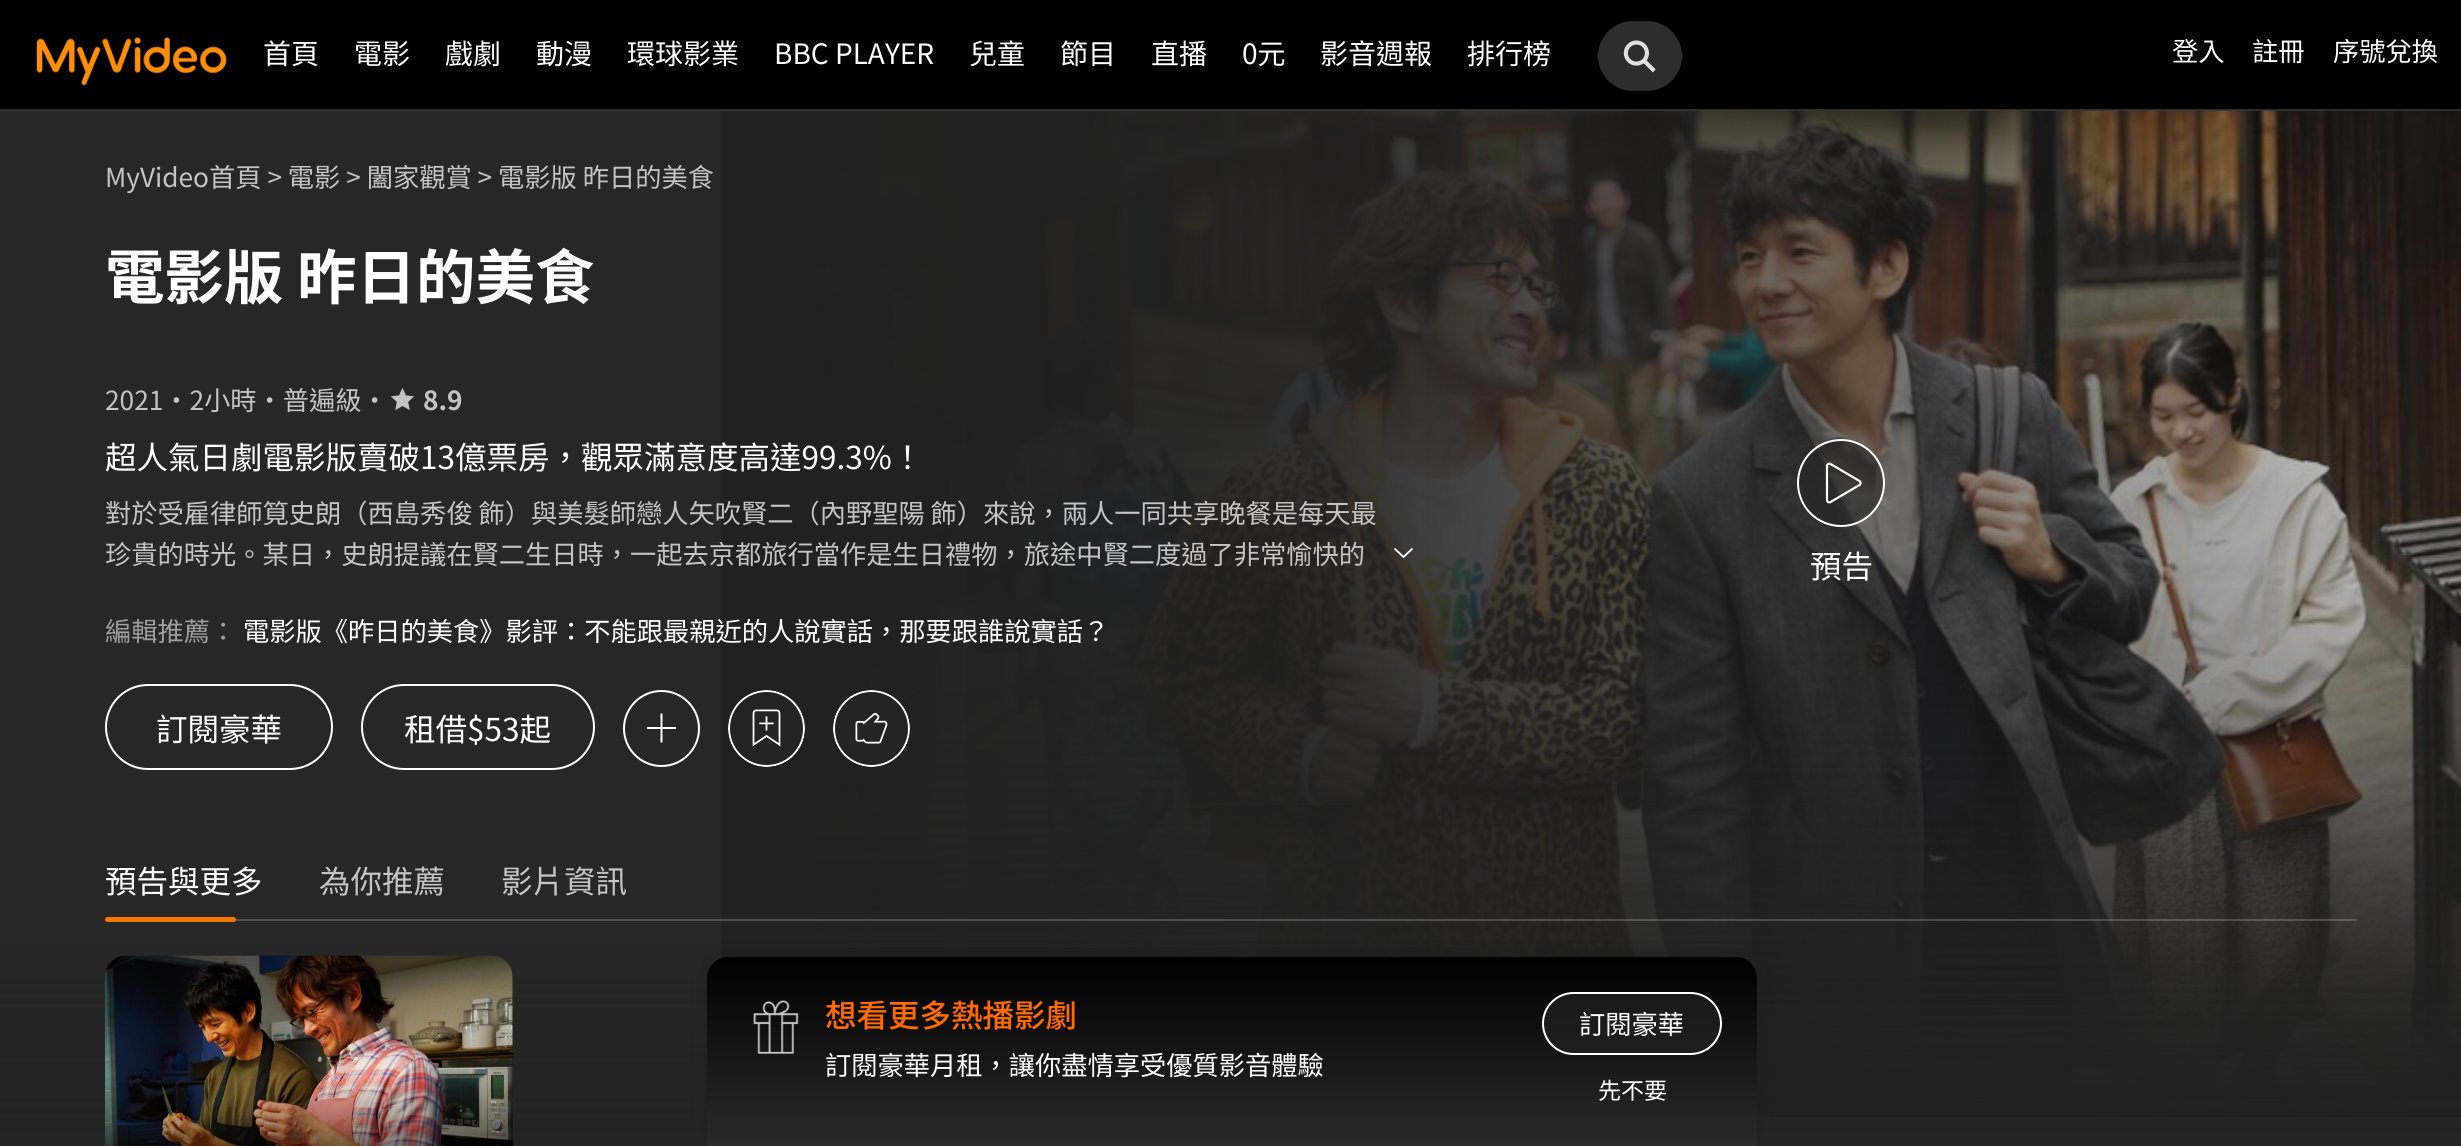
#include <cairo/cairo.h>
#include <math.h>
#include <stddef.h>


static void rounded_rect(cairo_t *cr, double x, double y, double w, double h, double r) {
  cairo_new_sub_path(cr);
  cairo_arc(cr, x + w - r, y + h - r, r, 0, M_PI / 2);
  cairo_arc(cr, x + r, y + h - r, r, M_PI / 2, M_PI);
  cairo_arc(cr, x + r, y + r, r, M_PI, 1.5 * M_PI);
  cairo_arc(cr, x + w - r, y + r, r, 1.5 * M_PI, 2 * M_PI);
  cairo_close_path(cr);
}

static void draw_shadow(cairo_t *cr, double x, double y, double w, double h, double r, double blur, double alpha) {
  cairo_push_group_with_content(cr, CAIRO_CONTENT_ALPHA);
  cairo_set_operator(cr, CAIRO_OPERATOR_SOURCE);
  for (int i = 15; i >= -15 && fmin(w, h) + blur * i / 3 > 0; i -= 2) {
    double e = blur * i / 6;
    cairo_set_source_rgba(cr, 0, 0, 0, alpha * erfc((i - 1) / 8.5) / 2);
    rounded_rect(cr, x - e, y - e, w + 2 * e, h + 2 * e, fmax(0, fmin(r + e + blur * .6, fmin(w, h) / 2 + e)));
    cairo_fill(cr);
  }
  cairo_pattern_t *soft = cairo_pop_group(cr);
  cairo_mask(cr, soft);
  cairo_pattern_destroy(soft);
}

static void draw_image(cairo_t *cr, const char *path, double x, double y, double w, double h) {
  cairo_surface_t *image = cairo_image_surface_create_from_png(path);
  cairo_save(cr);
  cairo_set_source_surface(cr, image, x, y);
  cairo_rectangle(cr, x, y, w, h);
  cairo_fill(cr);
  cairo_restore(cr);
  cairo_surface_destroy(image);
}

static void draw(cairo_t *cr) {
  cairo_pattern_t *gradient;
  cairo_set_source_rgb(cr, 39 / 255.0, 39 / 255.0, 39 / 255.0);
  cairo_paint(cr);
  cairo_set_source_rgb(cr, 0, 0, 0);
  cairo_rectangle(cr, 0, 0, 2461, 110);
  cairo_fill(cr);
  draw_image(cr, "images/3.png", 816, 110, 1645, 1005);
  gradient = cairo_pattern_create_linear(1621, 1117, 1620, -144);
  cairo_pattern_add_color_stop_rgba(gradient, 0.06, 33 / 255.0, 33 / 255.0, 33 / 255.0, 0.7);
  cairo_pattern_add_color_stop_rgba(gradient, 0.43, 33 / 255.0, 33 / 255.0, 33 / 255.0, 0);
  cairo_set_source(cr, gradient);
  cairo_pattern_destroy(gradient);
  cairo_rectangle(cr, 816, 588, 1645, 527);
  cairo_fill(cr);
  gradient = cairo_pattern_create_linear(721, 487, 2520, 486);
  cairo_pattern_add_color_stop_rgba(gradient, 0, 33 / 255.0, 33 / 255.0, 33 / 255.0, 1);
  cairo_pattern_add_color_stop_rgba(gradient, 0.18, 33 / 255.0, 33 / 255.0, 33 / 255.0, 0.98);
  cairo_pattern_add_color_stop_rgba(gradient, 0.34, 33 / 255.0, 33 / 255.0, 33 / 255.0, 0.92);
  cairo_pattern_add_color_stop_rgba(gradient, 1, 33 / 255.0, 33 / 255.0, 33 / 255.0, 0.2);
  cairo_set_source(cr, gradient);
  cairo_pattern_destroy(gradient);
  cairo_rectangle(cr, 721, 110, 1740, 1005);
  cairo_fill(cr);
  cairo_set_source_rgba(cr, 56 / 255.0, 56 / 255.0, 56 / 255.0, 0.8);
  cairo_rectangle(cr, 0, 109, 2461, 2);
  cairo_fill(cr);
  draw_image(cr, "images/1.png", 36, 37, 191, 48);
  cairo_set_source_rgb(cr, 45 / 255.0, 45 / 255.0, 45 / 255.0);
  rounded_rect(cr, 1598, 21, 84, 70, 35);
  cairo_fill(cr);
  draw_image(cr, "images/2.png", 1623, 40, 33, 33);
  gradient = cairo_pattern_create_linear(1621, 1117, 1621, -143);
  cairo_pattern_add_color_stop_rgba(gradient, 0, 33 / 255.0, 33 / 255.0, 33 / 255.0, 1);
  cairo_pattern_add_color_stop_rgba(gradient, 0.31, 33 / 255.0, 33 / 255.0, 33 / 255.0, 0);
  cairo_set_source(cr, gradient);
  cairo_pattern_destroy(gradient);
  cairo_rectangle(cr, 721, 738, 1740, 379);
  cairo_fill(cr);
  gradient = cairo_pattern_create_linear(1231, 108, 1231, 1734);
  cairo_pattern_add_color_stop_rgba(gradient, 0.47, 33 / 255.0, 33 / 255.0, 33 / 255.0, 0);
  cairo_pattern_add_color_stop_rgba(gradient, 0.51, 33 / 255.0, 33 / 255.0, 33 / 255.0, 0.1);
  cairo_pattern_add_color_stop_rgba(gradient, 0.62, 33 / 255.0, 33 / 255.0, 33 / 255.0, 0.6);
  cairo_pattern_add_color_stop_rgba(gradient, 0.73, 33 / 255.0, 33 / 255.0, 33 / 255.0, 0.85);
  cairo_pattern_add_color_stop_rgba(gradient, 0.81, 33 / 255.0, 33 / 255.0, 33 / 255.0, 1);
  cairo_set_source(cr, gradient);
  cairo_pattern_destroy(gradient);
  cairo_rectangle(cr, 0, 945, 2461, 201);
  cairo_fill(cr);
  draw_image(cr, "images/4.png", 390, 388, 25, 22);
  cairo_new_path(cr);
  cairo_move_to(cr, 1412.5, 548.5);
  cairo_line_to(cr, 1403.5, 557);
  cairo_line_to(cr, 1394.5, 548.5);
  cairo_set_source_rgb(cr, 1, 1, 1);
  cairo_set_line_width(cr, 1.8);
  cairo_stroke(cr);
  rounded_rect(cr, 106, 685, 226, 84, 42);
  cairo_set_line_width(cr, 2);
  cairo_stroke(cr);
  rounded_rect(cr, 362, 685, 232, 84, 42);
  cairo_stroke(cr);
  cairo_set_fill_rule(cr, CAIRO_FILL_RULE_EVEN_ODD);
  cairo_new_path(cr);
  cairo_move_to(cr, 647.5, 727);
  cairo_line_to(cr, 647, 727);
  cairo_line_to(cr, 647, 729);
  cairo_line_to(cr, 660.5, 729);
  cairo_line_to(cr, 660.5, 742.5);
  cairo_line_to(cr, 662.5, 742.5);
  cairo_line_to(cr, 662.5, 729);
  cairo_line_to(cr, 676, 729);
  cairo_line_to(cr, 676, 727);
  cairo_line_to(cr, 662.5, 727);
  cairo_line_to(cr, 662.5, 713.5);
  cairo_line_to(cr, 660.5, 713.5);
  cairo_line_to(cr, 660.5, 727);
  cairo_close_path(cr);
  cairo_fill(cr);
  cairo_arc(cr, 661.5, 728.5, 37.5, 0, 2 * M_PI);
  cairo_stroke(cr);
  cairo_set_source_rgb(cr, 36 / 255.0, 36 / 255.0, 36 / 255.0);
  cairo_arc(cr, 766.5, 728.5, 38.5, 0, 2 * M_PI);
  cairo_fill(cr);
  draw_image(cr, "images/5.png", 728, 690, 77, 77);
  cairo_arc(cr, 871.5, 728.5, 38.5, 0, 2 * M_PI);
  cairo_fill(cr);
  draw_image(cr, "images/6.png", 833, 690, 77, 77);
  cairo_set_source_rgba(cr, 38 / 255.0, 38 / 255.0, 38 / 255.0, 0.6);
  cairo_arc(cr, 1841, 483, 44, 0, 2 * M_PI);
  cairo_fill(cr);
  cairo_new_path(cr);
  cairo_move_to(cr, 1830.5, 502);
  cairo_curve_to(cr, 1829, 503, 1827, 502, 1827, 500);
  cairo_line_to(cr, 1827, 466);
  cairo_curve_to(cr, 1827, 464, 1829, 463, 1830.5, 464);
  cairo_line_to(cr, 1859.5, 481);
  cairo_curve_to(cr, 1861, 482, 1861, 484, 1859.5, 485);
  cairo_close_path(cr);
  cairo_set_source_rgb(cr, 1, 1, 1);
  cairo_set_line_width(cr, 2.2);
  cairo_stroke(cr);
  cairo_arc(cr, 1841, 483, 43, 0, 2 * M_PI);
  cairo_set_line_width(cr, 2);
  cairo_stroke(cr);
  cairo_set_source_rgba(cr, 1, 1, 1, 0.2);
  cairo_rectangle(cr, 105, 919, 2252, 2);
  cairo_fill(cr);
  cairo_set_source_rgb(cr, 245 / 255.0, 118 / 255.0, 0);
  rounded_rect(cr, 105, 917, 131, 5, 2.5);
  cairo_fill(cr);
  cairo_set_source_rgb(cr, 18 / 255.0, 18 / 255.0, 18 / 255.0);
  rounded_rect(cr, 105, 956, 408, 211, 21);
  cairo_fill(cr);
  draw_image(cr, "images/7.png", 105, 955, 408, 191);
  gradient = cairo_pattern_create_linear(307, 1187, 310, 953);
  cairo_pattern_add_color_stop_rgba(gradient, 0, 0, 0, 0, 0.8);
  cairo_pattern_add_color_stop_rgba(gradient, 0.28, 0, 0, 0, 0.29);
  cairo_pattern_add_color_stop_rgba(gradient, 0.47, 0, 0, 0, 0);
  cairo_set_source(cr, gradient);
  cairo_pattern_destroy(gradient);
  cairo_rectangle(cr, 105, 1078, 408, 68);
  cairo_fill(cr);
  cairo_set_source_rgb(cr, 27 / 255.0, 27 / 255.0, 27 / 255.0);
  draw_shadow(cr, 707, 956, 1050, 189, 21, 7, 0.8);
  gradient = cairo_pattern_create_linear(1232, 957, 1232, 1146);
  cairo_pattern_add_color_stop_rgba(gradient, 0, 0, 0, 0, 1);
  cairo_pattern_add_color_stop_rgba(gradient, 1, 42 / 255.0, 42 / 255.0, 42 / 255.0, 1);
  cairo_set_source(cr, gradient);
  cairo_pattern_destroy(gradient);
  cairo_new_path(cr);
  cairo_move_to(cr, 728, 957);
  cairo_line_to(cr, 1736, 957);
  cairo_curve_to(cr, 1747.5, 957, 1757, 966.5, 1757, 978);
  cairo_line_to(cr, 1757, 1146);
  cairo_line_to(cr, 707, 1146);
  cairo_line_to(cr, 707, 978);
  cairo_curve_to(cr, 707, 966.5, 716.5, 957, 728, 957);
  cairo_close_path(cr);
  cairo_fill(cr);
  draw_image(cr, "images/8.png", 753, 1000, 46, 54);
  cairo_set_source_rgba(cr, 38 / 255.0, 38 / 255.0, 38 / 255.0, 0.6);
  rounded_rect(cr, 1543, 993, 178, 61, 30.5);
  cairo_fill_preserve(cr);
  cairo_set_source_rgb(cr, 1, 1, 1);
  cairo_stroke(cr);
  cairo_select_font_face(cr, "Noto Sans TC", CAIRO_FONT_SLANT_NORMAL, CAIRO_FONT_WEIGHT_NORMAL);
  cairo_set_font_size(cr, 28);
  cairo_move_to(cr, 263, 64);
  cairo_show_text(cr, "首頁");
  cairo_move_to(cr, 354, 64);
  cairo_show_text(cr, "電影");
  cairo_move_to(cr, 445, 64);
  cairo_show_text(cr, "戲劇");
  cairo_move_to(cr, 536, 64);
  cairo_show_text(cr, "動漫");
  cairo_move_to(cr, 627, 64);
  cairo_show_text(cr, "環球影業");
  cairo_move_to(cr, 774, 64);
  cairo_show_text(cr, "BBC PLAYER");
  cairo_move_to(cr, 969, 64);
  cairo_show_text(cr, "兒童");
  cairo_move_to(cr, 1060, 64);
  cairo_show_text(cr, "節目");
  cairo_move_to(cr, 1151, 64);
  cairo_show_text(cr, "直播");
  cairo_move_to(cr, 1242, 64);
  cairo_show_text(cr, "0元");
  cairo_move_to(cr, 1320, 64);
  cairo_show_text(cr, "影音週報");
  cairo_move_to(cr, 1467, 64);
  cairo_show_text(cr, "排行榜");
  cairo_set_font_size(cr, 26.25);
  cairo_move_to(cr, 2172, 61);
  cairo_show_text(cr, "登入");
  cairo_move_to(cr, 2252, 61);
  cairo_show_text(cr, "註冊");
  cairo_move_to(cr, 2333, 61);
  cairo_show_text(cr, "序號兌換");
  cairo_set_source_rgb(cr, 196 / 255.0, 196 / 255.0, 196 / 255.0);
  cairo_move_to(cr, 105, 187);
  cairo_show_text(cr, "MyVideo首頁 > 電影 > 闔家觀賞 > 電影版 昨日的美食");
  cairo_select_font_face(cr, "Noto Sans TC", CAIRO_FONT_SLANT_NORMAL, CAIRO_FONT_WEIGHT_BOLD);
  cairo_set_font_size(cr, 59.5);
  cairo_set_source_rgb(cr, 1, 1, 1);
  cairo_move_to(cr, 105, 299);
  cairo_show_text(cr, "電影版 昨日的美食");
  cairo_select_font_face(cr, "Noto Sans TC", CAIRO_FONT_SLANT_NORMAL, CAIRO_FONT_WEIGHT_NORMAL);
  cairo_set_font_size(cr, 26.25);
  cairo_set_source_rgb(cr, 196 / 255.0, 196 / 255.0, 196 / 255.0);
  cairo_move_to(cr, 105, 410);
  cairo_show_text(cr, "2021・2小時・普遍級・");
  cairo_select_font_face(cr, "Noto Sans TC", CAIRO_FONT_SLANT_NORMAL, CAIRO_FONT_WEIGHT_BOLD);
  cairo_move_to(cr, 423, 410);
  cairo_show_text(cr, "8.9");
  cairo_select_font_face(cr, "Noto Sans TC", CAIRO_FONT_SLANT_NORMAL, CAIRO_FONT_WEIGHT_NORMAL);
  cairo_set_font_size(cr, 31.5);
  cairo_set_source_rgb(cr, 1, 1, 1);
  cairo_move_to(cr, 105, 469);
  cairo_show_text(cr, "超人氣日劇電影版賣破13億票房，觀眾滿意度高達99.3%！");
  cairo_set_font_size(cr, 26.25);
  cairo_set_source_rgb(cr, 196 / 255.0, 196 / 255.0, 196 / 255.0);
  cairo_move_to(cr, 105, 523);
  cairo_show_text(cr, "對於受雇律師筧史朗（西島秀俊 飾）與美髮師戀人矢吹賢二（內野聖陽 飾）來說，兩人一同共享晚餐是每天最");
  cairo_move_to(cr, 105, 564);
  cairo_show_text(cr, "珍貴的時光。某日，史朗提議在賢二生日時，一起去京都旅行當作是生日禮物，旅途中賢二度過了非常愉快的");
  cairo_set_source_rgb(cr, 158 / 255.0, 158 / 255.0, 158 / 255.0);
  cairo_move_to(cr, 105, 641);
  cairo_show_text(cr, "編輯推薦：");
  cairo_set_source_rgb(cr, 1, 1, 1);
  cairo_move_to(cr, 243, 641);
  cairo_show_text(cr, "電影版《昨日的美食》影評：不能跟最親近的人說實話，那要跟誰說實話？");
  cairo_set_font_size(cr, 31.5);
  cairo_move_to(cr, 156, 741);
  cairo_show_text(cr, "訂閱豪華");
  cairo_move_to(cr, 404, 741);
  cairo_show_text(cr, "租借$53起");
  cairo_move_to(cr, 1810, 578);
  cairo_show_text(cr, "預告");
  cairo_move_to(cr, 105, 893);
  cairo_show_text(cr, "預告與更多");
  cairo_set_source_rgb(cr, 196 / 255.0, 196 / 255.0, 196 / 255.0);
  cairo_move_to(cr, 319, 893);
  cairo_show_text(cr, "為你推薦");
  cairo_move_to(cr, 501, 893);
  cairo_show_text(cr, "影片資訊");
  cairo_select_font_face(cr, "Noto Sans TC Medium", CAIRO_FONT_SLANT_NORMAL, CAIRO_FONT_WEIGHT_NORMAL);
  cairo_set_source_rgb(cr, 1, 107 / 255.0, 0);
  cairo_move_to(cr, 825, 1027);
  cairo_show_text(cr, "想看更多熱播影劇");
  cairo_select_font_face(cr, "Noto Sans TC", CAIRO_FONT_SLANT_NORMAL, CAIRO_FONT_WEIGHT_NORMAL);
  cairo_set_font_size(cr, 26.25);
  cairo_set_source_rgb(cr, 1, 1, 1);
  cairo_move_to(cr, 825, 1075);
  cairo_show_text(cr, "訂閱豪華月租，讓你盡情享受優質影音體驗");
  cairo_move_to(cr, 1579, 1034);
  cairo_show_text(cr, "訂閱豪華");
  cairo_set_font_size(cr, 23);
  cairo_move_to(cr, 1598, 1099);
  cairo_show_text(cr, "先不要");
}

int main(void) {
  cairo_surface_t *surface = cairo_image_surface_create(CAIRO_FORMAT_RGB24, 2461, 1146);
  cairo_t *cr = cairo_create(surface);
  cairo_font_options_t *options = cairo_font_options_create();
  cairo_font_options_set_hint_metrics(options, CAIRO_HINT_METRICS_OFF);
  cairo_font_options_set_hint_style(options, CAIRO_HINT_STYLE_NONE);
  cairo_set_font_options(cr, options);
  cairo_set_miter_limit(cr, 4);
  draw(cr);
  cairo_surface_write_to_png(surface, "out.png");
  cairo_font_options_destroy(options);
  cairo_destroy(cr);
  cairo_surface_destroy(surface);
  return 0;
}
